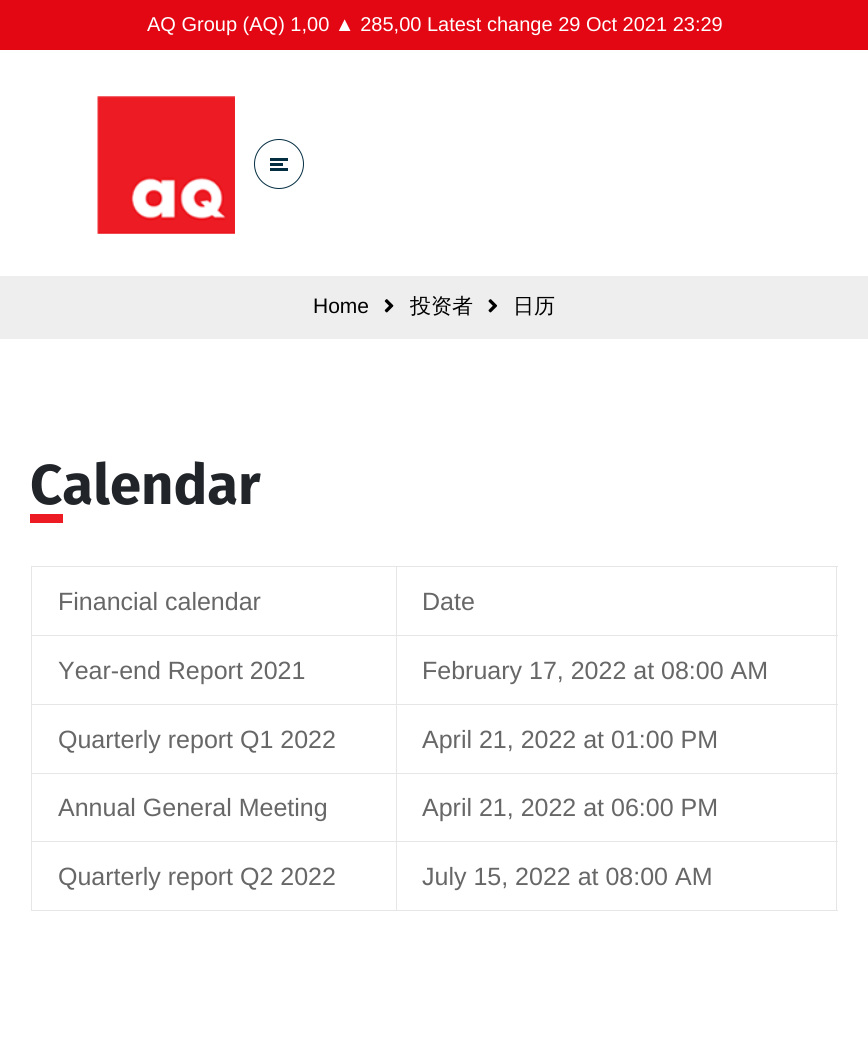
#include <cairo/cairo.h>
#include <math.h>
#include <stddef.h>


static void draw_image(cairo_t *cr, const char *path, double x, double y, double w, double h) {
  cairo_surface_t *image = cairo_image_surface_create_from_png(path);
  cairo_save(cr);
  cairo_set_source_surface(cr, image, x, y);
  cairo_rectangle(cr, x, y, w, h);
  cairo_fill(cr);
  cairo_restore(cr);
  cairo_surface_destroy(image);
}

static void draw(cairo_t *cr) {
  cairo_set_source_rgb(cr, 1, 1, 1);
  cairo_paint(cr);
  cairo_set_source_rgb(cr, 227 / 255.0, 6 / 255.0, 19 / 255.0);
  cairo_rectangle(cr, 0, 0, 868, 50);
  cairo_fill(cr);
  draw_image(cr, "images/1.png", 97, 96, 138, 138);
  cairo_arc(cr, 279, 164, 24.5, 0, 2 * M_PI);
  cairo_set_source_rgb(cr, 3 / 255.0, 46 / 255.0, 66 / 255.0);
  cairo_set_line_width(cr, 1);
  cairo_stroke(cr);
  cairo_rectangle(cr, 270, 158, 18, 3);
  cairo_fill(cr);
  cairo_rectangle(cr, 270, 163, 13, 3);
  cairo_fill(cr);
  cairo_rectangle(cr, 270, 168, 18, 3);
  cairo_fill(cr);
  cairo_set_source_rgb(cr, 238 / 255.0, 238 / 255.0, 238 / 255.0);
  cairo_rectangle(cr, 0, 276, 868, 63);
  cairo_fill(cr);
  draw_image(cr, "images/2.png", 384, 299, 10, 14);
  draw_image(cr, "images/3.png", 488, 299, 10, 14);
  cairo_set_source_rgb(cr, 237 / 255.0, 27 / 255.0, 35 / 255.0);
  cairo_rectangle(cr, 30, 514, 33, 9);
  cairo_fill(cr);
  cairo_set_source_rgb(cr, 230 / 255.0, 230 / 255.0, 230 / 255.0);
  cairo_rectangle(cr, 396, 566, 442, 1);
  cairo_fill(cr);
  cairo_rectangle(cr, 836, 635, 1, 276);
  cairo_fill(cr);
  cairo_rectangle(cr, 836, 566, 1, 70);
  cairo_fill(cr);
  cairo_rectangle(cr, 396, 910, 442, 1);
  cairo_fill(cr);
  cairo_rectangle(cr, 396, 841, 1, 70);
  cairo_fill(cr);
  cairo_rectangle(cr, 396, 841, 442, 1);
  cairo_fill(cr);
  cairo_rectangle(cr, 396, 773, 1, 70);
  cairo_fill(cr);
  cairo_rectangle(cr, 396, 773, 442, 1);
  cairo_fill(cr);
  cairo_rectangle(cr, 396, 704, 1, 70);
  cairo_fill(cr);
  cairo_rectangle(cr, 396, 704, 442, 1);
  cairo_fill(cr);
  cairo_rectangle(cr, 396, 635, 1, 70);
  cairo_fill(cr);
  cairo_rectangle(cr, 396, 635, 442, 1);
  cairo_fill(cr);
  cairo_rectangle(cr, 396, 566, 1, 70);
  cairo_fill(cr);
  cairo_rectangle(cr, 31, 566, 367, 1);
  cairo_fill(cr);
  cairo_rectangle(cr, 31, 910, 367, 1);
  cairo_fill(cr);
  cairo_rectangle(cr, 31, 841, 1, 70);
  cairo_fill(cr);
  cairo_rectangle(cr, 31, 841, 367, 1);
  cairo_fill(cr);
  cairo_rectangle(cr, 31, 773, 1, 70);
  cairo_fill(cr);
  cairo_rectangle(cr, 31, 773, 367, 1);
  cairo_fill(cr);
  cairo_rectangle(cr, 31, 704, 1, 70);
  cairo_fill(cr);
  cairo_rectangle(cr, 31, 704, 367, 1);
  cairo_fill(cr);
  cairo_rectangle(cr, 31, 635, 1, 70);
  cairo_fill(cr);
  cairo_rectangle(cr, 31, 635, 367, 1);
  cairo_fill(cr);
  cairo_rectangle(cr, 31, 566, 1, 70);
  cairo_fill(cr);
  cairo_select_font_face(cr, "Liberation Sans", CAIRO_FONT_SLANT_NORMAL, CAIRO_FONT_WEIGHT_NORMAL);
  cairo_set_font_size(cr, 20);
  cairo_set_source_rgb(cr, 1, 1, 1);
  cairo_move_to(cr, 147, 31);
  cairo_show_text(cr, "AQ Group (AQ) 1,00 ▲ 285,00 Latest change 29 Oct 2021 23:29");
  cairo_set_font_size(cr, 21);
  cairo_set_source_rgb(cr, 0, 0, 0);
  cairo_move_to(cr, 313, 313);
  cairo_show_text(cr, "Home");
  cairo_select_font_face(cr, "WenQuanYi Zen Hei Medium", CAIRO_FONT_SLANT_NORMAL, CAIRO_FONT_WEIGHT_NORMAL);
  cairo_move_to(cr, 410, 313);
  cairo_show_text(cr, "投资者");
  cairo_move_to(cr, 513, 313);
  cairo_show_text(cr, "日历");
  cairo_select_font_face(cr, "Fira Sans", CAIRO_FONT_SLANT_NORMAL, CAIRO_FONT_WEIGHT_BOLD);
  cairo_set_font_size(cr, 56.25);
  cairo_set_source_rgb(cr, 33 / 255.0, 37 / 255.0, 41 / 255.0);
  cairo_move_to(cr, 30, 504);
  cairo_show_text(cr, "Calendar");
  cairo_select_font_face(cr, "Liberation Sans", CAIRO_FONT_SLANT_NORMAL, CAIRO_FONT_WEIGHT_NORMAL);
  cairo_set_font_size(cr, 25);
  cairo_set_source_rgb(cr, 103 / 255.0, 103 / 255.0, 103 / 255.0);
  cairo_move_to(cr, 58, 610);
  cairo_show_text(cr, "Financial calendar");
  cairo_move_to(cr, 422, 610);
  cairo_show_text(cr, "Date");
  cairo_move_to(cr, 58, 679);
  cairo_show_text(cr, "Year-end Report 2021");
  cairo_move_to(cr, 422, 679);
  cairo_show_text(cr, "February 17, 2022 at 08:00 AM");
  cairo_move_to(cr, 58, 748);
  cairo_show_text(cr, "Quarterly report Q1 2022");
  cairo_move_to(cr, 422, 748);
  cairo_show_text(cr, "April 21, 2022 at 01:00 PM");
  cairo_move_to(cr, 58, 816);
  cairo_show_text(cr, "Annual General Meeting");
  cairo_move_to(cr, 422, 816);
  cairo_show_text(cr, "April 21, 2022 at 06:00 PM");
  cairo_move_to(cr, 58, 885);
  cairo_show_text(cr, "Quarterly report Q2 2022");
  cairo_move_to(cr, 422, 885);
  cairo_show_text(cr, "July 15, 2022 at 08:00 AM");
}

int main(void) {
  cairo_surface_t *surface = cairo_image_surface_create(CAIRO_FORMAT_RGB24, 868, 1061);
  cairo_t *cr = cairo_create(surface);
  cairo_font_options_t *options = cairo_font_options_create();
  cairo_font_options_set_hint_metrics(options, CAIRO_HINT_METRICS_OFF);
  cairo_font_options_set_hint_style(options, CAIRO_HINT_STYLE_NONE);
  cairo_set_font_options(cr, options);
  cairo_set_miter_limit(cr, 4);
  draw(cr);
  cairo_surface_write_to_png(surface, "out.png");
  cairo_font_options_destroy(options);
  cairo_destroy(cr);
  cairo_surface_destroy(surface);
  return 0;
}
